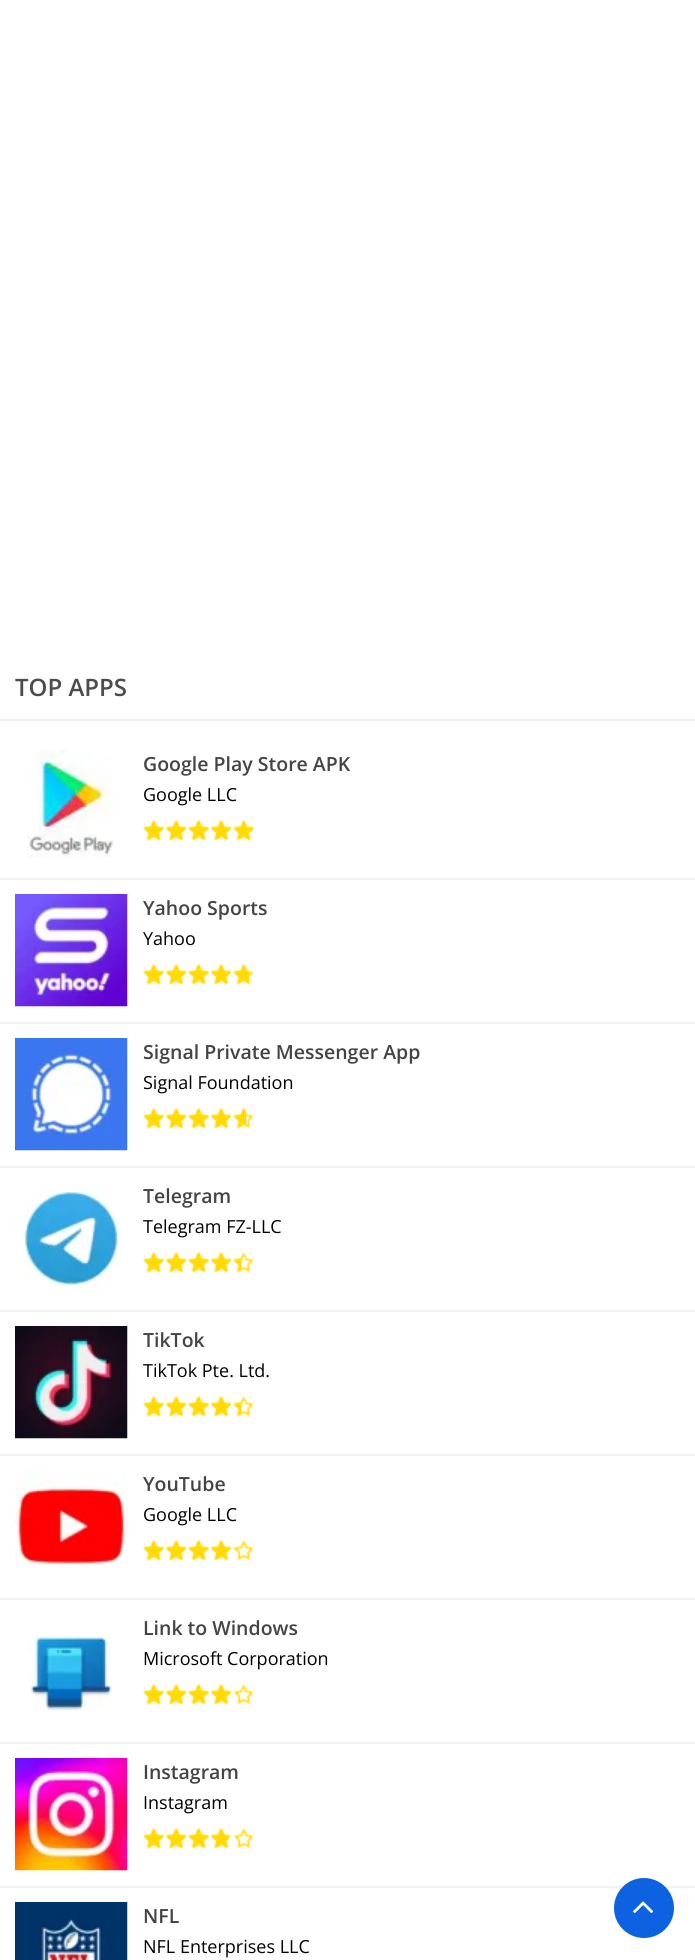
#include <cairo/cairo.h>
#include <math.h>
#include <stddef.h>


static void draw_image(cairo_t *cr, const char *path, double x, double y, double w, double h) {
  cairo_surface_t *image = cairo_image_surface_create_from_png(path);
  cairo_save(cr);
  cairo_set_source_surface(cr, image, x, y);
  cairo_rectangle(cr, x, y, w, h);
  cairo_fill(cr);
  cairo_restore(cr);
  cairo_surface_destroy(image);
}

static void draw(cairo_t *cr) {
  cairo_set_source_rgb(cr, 1, 1, 1);
  cairo_paint(cr);
  cairo_set_source_rgb(cr, 242 / 255.0, 242 / 255.0, 242 / 255.0);
  cairo_rectangle(cr, 0, 719, 695, 2);
  cairo_fill(cr);
  cairo_rectangle(cr, 0, 878, 695, 2);
  cairo_fill(cr);
  draw_image(cr, "images/1.png", 27, 750, 87, 108);
  draw_image(cr, "images/2.png", 143, 820, 111, 21);
  draw_image(cr, "images/3.png", 143, 820, 111, 21);
  cairo_rectangle(cr, 0, 1022, 695, 2);
  cairo_fill(cr);
  draw_image(cr, "images/4.png", 15, 894, 113, 113);
  draw_image(cr, "images/5.png", 143, 964, 111, 21);
  draw_image(cr, "images/6.png", 143, 964, 106, 21);
  cairo_rectangle(cr, 0, 1166, 695, 2);
  cairo_fill(cr);
  draw_image(cr, "images/7.png", 15, 1038, 113, 113);
  draw_image(cr, "images/8.png", 143, 1108, 111, 21);
  draw_image(cr, "images/9.png", 143, 1108, 103, 21);
  cairo_rectangle(cr, 0, 1310, 695, 2);
  cairo_fill(cr);
  draw_image(cr, "images/10.png", 23, 1185, 100, 105);
  draw_image(cr, "images/11.png", 143, 1252, 111, 21);
  draw_image(cr, "images/12.png", 143, 1252, 99, 21);
  cairo_rectangle(cr, 0, 1454, 695, 2);
  cairo_fill(cr);
  draw_image(cr, "images/13.png", 15, 1326, 113, 113);
  draw_image(cr, "images/14.png", 143, 1396, 111, 21);
  draw_image(cr, "images/15.png", 143, 1396, 99, 21);
  cairo_rectangle(cr, 0, 1598, 695, 2);
  cairo_fill(cr);
  draw_image(cr, "images/16.png", 15, 1470, 112, 96);
  draw_image(cr, "images/2.png", 143, 1540, 111, 21);
  draw_image(cr, "images/17.png", 143, 1540, 93, 21);
  cairo_rectangle(cr, 0, 1742, 695, 2);
  cairo_fill(cr);
  draw_image(cr, "images/18.png", 27, 1636, 85, 75);
  draw_image(cr, "images/2.png", 143, 1684, 111, 21);
  draw_image(cr, "images/19.png", 143, 1684, 88, 21);
  cairo_rectangle(cr, 0, 1886, 695, 2);
  cairo_fill(cr);
  draw_image(cr, "images/20.png", 15, 1758, 113, 113);
  draw_image(cr, "images/2.png", 143, 1828, 111, 21);
  draw_image(cr, "images/21.png", 143, 1828, 85, 21);
  draw_image(cr, "images/22.png", 15, 1902, 113, 58);
  cairo_set_source_rgb(cr, 13 / 255.0, 98 / 255.0, 226 / 255.0);
  cairo_arc(cr, 644, 1908, 30, 0, 2 * M_PI);
  cairo_fill(cr);
  draw_image(cr, "images/23.png", 633, 1901, 21, 12);
  cairo_select_font_face(cr, "Open Sans SemiBold", CAIRO_FONT_SLANT_NORMAL, CAIRO_FONT_WEIGHT_NORMAL);
  cairo_set_font_size(cr, 24);
  cairo_set_source_rgb(cr, 76 / 255.0, 76 / 255.0, 76 / 255.0);
  cairo_move_to(cr, 15, 696);
  cairo_show_text(cr, "TOP APPS");
  cairo_set_font_size(cr, 19.5);
  cairo_set_source_rgb(cr, 68 / 255.0, 68 / 255.0, 68 / 255.0);
  cairo_move_to(cr, 143, 771);
  cairo_show_text(cr, "Google Play Store APK");
  cairo_select_font_face(cr, "Open Sans", CAIRO_FONT_SLANT_NORMAL, CAIRO_FONT_WEIGHT_NORMAL);
  cairo_set_font_size(cr, 18);
  cairo_set_source_rgb(cr, 0, 0, 0);
  cairo_move_to(cr, 143, 801);
  cairo_show_text(cr, "Google LLC");
  cairo_select_font_face(cr, "Open Sans SemiBold", CAIRO_FONT_SLANT_NORMAL, CAIRO_FONT_WEIGHT_NORMAL);
  cairo_set_font_size(cr, 19.5);
  cairo_set_source_rgb(cr, 68 / 255.0, 68 / 255.0, 68 / 255.0);
  cairo_move_to(cr, 143, 915);
  cairo_show_text(cr, "Yahoo Sports");
  cairo_select_font_face(cr, "Open Sans", CAIRO_FONT_SLANT_NORMAL, CAIRO_FONT_WEIGHT_NORMAL);
  cairo_set_font_size(cr, 18);
  cairo_set_source_rgb(cr, 0, 0, 0);
  cairo_move_to(cr, 143, 945);
  cairo_show_text(cr, "Yahoo");
  cairo_select_font_face(cr, "Open Sans SemiBold", CAIRO_FONT_SLANT_NORMAL, CAIRO_FONT_WEIGHT_NORMAL);
  cairo_set_font_size(cr, 19.5);
  cairo_set_source_rgb(cr, 68 / 255.0, 68 / 255.0, 68 / 255.0);
  cairo_move_to(cr, 143, 1059);
  cairo_show_text(cr, "Signal Private Messenger App");
  cairo_select_font_face(cr, "Open Sans", CAIRO_FONT_SLANT_NORMAL, CAIRO_FONT_WEIGHT_NORMAL);
  cairo_set_font_size(cr, 18);
  cairo_set_source_rgb(cr, 0, 0, 0);
  cairo_move_to(cr, 143, 1089);
  cairo_show_text(cr, "Signal Foundation");
  cairo_select_font_face(cr, "Open Sans SemiBold", CAIRO_FONT_SLANT_NORMAL, CAIRO_FONT_WEIGHT_NORMAL);
  cairo_set_font_size(cr, 19.5);
  cairo_set_source_rgb(cr, 68 / 255.0, 68 / 255.0, 68 / 255.0);
  cairo_move_to(cr, 143, 1203);
  cairo_show_text(cr, "Telegram");
  cairo_select_font_face(cr, "Open Sans", CAIRO_FONT_SLANT_NORMAL, CAIRO_FONT_WEIGHT_NORMAL);
  cairo_set_font_size(cr, 18);
  cairo_set_source_rgb(cr, 0, 0, 0);
  cairo_move_to(cr, 143, 1233);
  cairo_show_text(cr, "Telegram FZ-LLC");
  cairo_select_font_face(cr, "Open Sans SemiBold", CAIRO_FONT_SLANT_NORMAL, CAIRO_FONT_WEIGHT_NORMAL);
  cairo_set_font_size(cr, 19.5);
  cairo_set_source_rgb(cr, 68 / 255.0, 68 / 255.0, 68 / 255.0);
  cairo_move_to(cr, 143, 1347);
  cairo_show_text(cr, "TikTok");
  cairo_select_font_face(cr, "Open Sans", CAIRO_FONT_SLANT_NORMAL, CAIRO_FONT_WEIGHT_NORMAL);
  cairo_set_font_size(cr, 18);
  cairo_set_source_rgb(cr, 0, 0, 0);
  cairo_move_to(cr, 143, 1377);
  cairo_show_text(cr, "TikTok Pte. Ltd.");
  cairo_select_font_face(cr, "Open Sans SemiBold", CAIRO_FONT_SLANT_NORMAL, CAIRO_FONT_WEIGHT_NORMAL);
  cairo_set_font_size(cr, 19.5);
  cairo_set_source_rgb(cr, 68 / 255.0, 68 / 255.0, 68 / 255.0);
  cairo_move_to(cr, 143, 1491);
  cairo_show_text(cr, "YouTube");
  cairo_select_font_face(cr, "Open Sans", CAIRO_FONT_SLANT_NORMAL, CAIRO_FONT_WEIGHT_NORMAL);
  cairo_set_font_size(cr, 18);
  cairo_set_source_rgb(cr, 0, 0, 0);
  cairo_move_to(cr, 143, 1521);
  cairo_show_text(cr, "Google LLC");
  cairo_select_font_face(cr, "Open Sans SemiBold", CAIRO_FONT_SLANT_NORMAL, CAIRO_FONT_WEIGHT_NORMAL);
  cairo_set_font_size(cr, 19.5);
  cairo_set_source_rgb(cr, 68 / 255.0, 68 / 255.0, 68 / 255.0);
  cairo_move_to(cr, 143, 1635);
  cairo_show_text(cr, "Link to Windows");
  cairo_select_font_face(cr, "Open Sans", CAIRO_FONT_SLANT_NORMAL, CAIRO_FONT_WEIGHT_NORMAL);
  cairo_set_font_size(cr, 18);
  cairo_set_source_rgb(cr, 0, 0, 0);
  cairo_move_to(cr, 143, 1665);
  cairo_show_text(cr, "Microsoft Corporation");
  cairo_select_font_face(cr, "Open Sans SemiBold", CAIRO_FONT_SLANT_NORMAL, CAIRO_FONT_WEIGHT_NORMAL);
  cairo_set_font_size(cr, 19.5);
  cairo_set_source_rgb(cr, 68 / 255.0, 68 / 255.0, 68 / 255.0);
  cairo_move_to(cr, 143, 1779);
  cairo_show_text(cr, "Instagram");
  cairo_select_font_face(cr, "Open Sans", CAIRO_FONT_SLANT_NORMAL, CAIRO_FONT_WEIGHT_NORMAL);
  cairo_set_font_size(cr, 18);
  cairo_set_source_rgb(cr, 0, 0, 0);
  cairo_move_to(cr, 143, 1809);
  cairo_show_text(cr, "Instagram");
  cairo_select_font_face(cr, "Open Sans SemiBold", CAIRO_FONT_SLANT_NORMAL, CAIRO_FONT_WEIGHT_NORMAL);
  cairo_set_font_size(cr, 19.5);
  cairo_set_source_rgb(cr, 68 / 255.0, 68 / 255.0, 68 / 255.0);
  cairo_move_to(cr, 143, 1923);
  cairo_show_text(cr, "NFL");
  cairo_select_font_face(cr, "Open Sans", CAIRO_FONT_SLANT_NORMAL, CAIRO_FONT_WEIGHT_NORMAL);
  cairo_set_font_size(cr, 18);
  cairo_set_source_rgb(cr, 0, 0, 0);
  cairo_move_to(cr, 143, 1953);
  cairo_show_text(cr, "NFL Enterprises LLC");
}

int main(void) {
  cairo_surface_t *surface = cairo_image_surface_create(CAIRO_FORMAT_RGB24, 695, 1960);
  cairo_t *cr = cairo_create(surface);
  cairo_font_options_t *options = cairo_font_options_create();
  cairo_font_options_set_hint_metrics(options, CAIRO_HINT_METRICS_OFF);
  cairo_font_options_set_hint_style(options, CAIRO_HINT_STYLE_NONE);
  cairo_set_font_options(cr, options);
  cairo_set_miter_limit(cr, 4);
  draw(cr);
  cairo_surface_write_to_png(surface, "out.png");
  cairo_font_options_destroy(options);
  cairo_destroy(cr);
  cairo_surface_destroy(surface);
  return 0;
}
